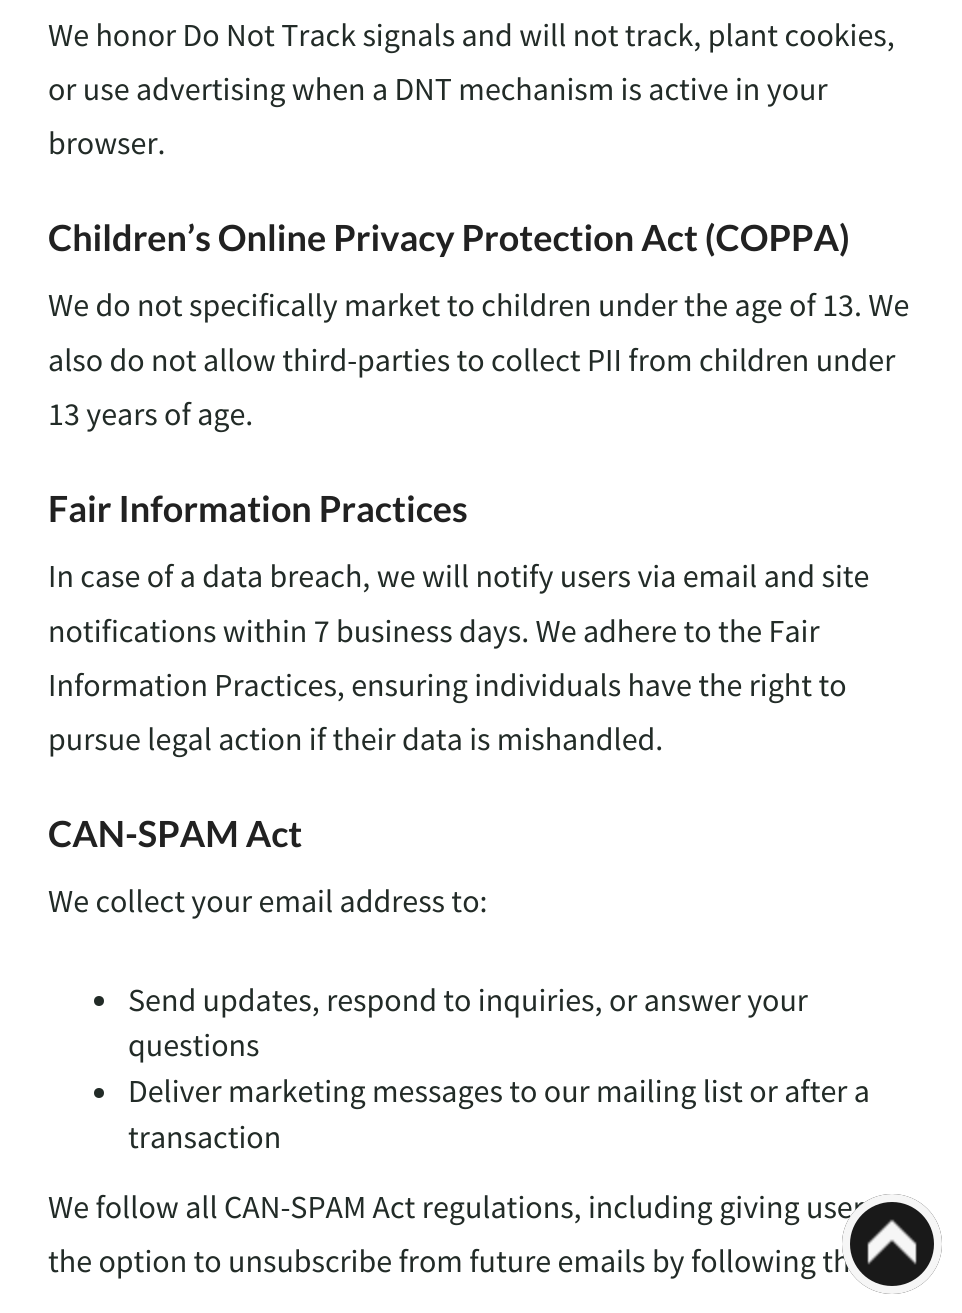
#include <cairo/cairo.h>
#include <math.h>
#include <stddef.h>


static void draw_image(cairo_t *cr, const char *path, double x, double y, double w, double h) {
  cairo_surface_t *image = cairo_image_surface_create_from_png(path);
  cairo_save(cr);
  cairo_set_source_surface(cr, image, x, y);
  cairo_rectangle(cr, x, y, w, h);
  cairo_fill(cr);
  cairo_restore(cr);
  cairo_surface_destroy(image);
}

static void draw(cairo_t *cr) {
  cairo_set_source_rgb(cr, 1, 1, 1);
  cairo_paint(cr);
  cairo_set_source_rgb(cr, 34 / 255.0, 43 / 255.0, 39 / 255.0);
  cairo_arc(cr, 99, 1001, 5, 0, 2 * M_PI);
  cairo_fill(cr);
  cairo_arc(cr, 99, 1093, 5, 0, 2 * M_PI);
  cairo_fill(cr);
  cairo_select_font_face(cr, "Source Sans Pro", CAIRO_FONT_SLANT_NORMAL, CAIRO_FONT_WEIGHT_NORMAL);
  cairo_set_font_size(cr, 32);
  cairo_move_to(cr, 48, 46);
  cairo_show_text(cr, "We honor Do Not Track signals and will not track, plant cookies,");
  cairo_move_to(cr, 48, 100);
  cairo_show_text(cr, "or use advertising when a DNT mechanism is active in your");
  cairo_move_to(cr, 48, 154);
  cairo_show_text(cr, "browser.");
  cairo_select_font_face(cr, "Lato", CAIRO_FONT_SLANT_NORMAL, CAIRO_FONT_WEIGHT_BOLD);
  cairo_set_font_size(cr, 36);
  cairo_set_source_rgb(cr, 33 / 255.0, 33 / 255.0, 33 / 255.0);
  cairo_move_to(cr, 48, 251);
  cairo_show_text(cr, "Children’s Online Privacy Protection Act (COPPA)");
  cairo_select_font_face(cr, "Source Sans Pro", CAIRO_FONT_SLANT_NORMAL, CAIRO_FONT_WEIGHT_NORMAL);
  cairo_set_font_size(cr, 32);
  cairo_set_source_rgb(cr, 34 / 255.0, 43 / 255.0, 39 / 255.0);
  cairo_move_to(cr, 48, 316);
  cairo_show_text(cr, "We do not specifically market to children under the age of 13. We");
  cairo_move_to(cr, 48, 371);
  cairo_show_text(cr, "also do not allow third-parties to collect PII from children under");
  cairo_move_to(cr, 48, 425);
  cairo_show_text(cr, "13 years of age.");
  cairo_select_font_face(cr, "Lato", CAIRO_FONT_SLANT_NORMAL, CAIRO_FONT_WEIGHT_BOLD);
  cairo_set_font_size(cr, 36);
  cairo_set_source_rgb(cr, 33 / 255.0, 33 / 255.0, 33 / 255.0);
  cairo_move_to(cr, 48, 522);
  cairo_show_text(cr, "Fair Information Practices");
  cairo_select_font_face(cr, "Source Sans Pro", CAIRO_FONT_SLANT_NORMAL, CAIRO_FONT_WEIGHT_NORMAL);
  cairo_set_font_size(cr, 32);
  cairo_set_source_rgb(cr, 34 / 255.0, 43 / 255.0, 39 / 255.0);
  cairo_move_to(cr, 48, 587);
  cairo_show_text(cr, "In case of a data breach, we will notify users via email and site");
  cairo_move_to(cr, 48, 642);
  cairo_show_text(cr, "notifications within 7 business days. We adhere to the Fair");
  cairo_move_to(cr, 48, 696);
  cairo_show_text(cr, "Information Practices, ensuring individuals have the right to");
  cairo_move_to(cr, 48, 750);
  cairo_show_text(cr, "pursue legal action if their data is mishandled.");
  cairo_select_font_face(cr, "Lato", CAIRO_FONT_SLANT_NORMAL, CAIRO_FONT_WEIGHT_BOLD);
  cairo_set_font_size(cr, 36);
  cairo_set_source_rgb(cr, 33 / 255.0, 33 / 255.0, 33 / 255.0);
  cairo_move_to(cr, 48, 847);
  cairo_show_text(cr, "CAN-SPAM Act");
  cairo_select_font_face(cr, "Source Sans Pro", CAIRO_FONT_SLANT_NORMAL, CAIRO_FONT_WEIGHT_NORMAL);
  cairo_set_font_size(cr, 32);
  cairo_set_source_rgb(cr, 34 / 255.0, 43 / 255.0, 39 / 255.0);
  cairo_move_to(cr, 48, 912);
  cairo_show_text(cr, "We collect your email address to:");
  cairo_move_to(cr, 128, 1011);
  cairo_show_text(cr, "Send updates, respond to inquiries, or answer your");
  cairo_move_to(cr, 128, 1056);
  cairo_show_text(cr, "questions");
  cairo_move_to(cr, 128, 1102);
  cairo_show_text(cr, "Deliver marketing messages to our mailing list or after a");
  cairo_move_to(cr, 128, 1148);
  cairo_show_text(cr, "transaction");
  cairo_move_to(cr, 48, 1218);
  cairo_show_text(cr, "We follow all CAN-SPAM Act regulations, including giving user");
  cairo_move_to(cr, 48, 1272);
  cairo_show_text(cr, "the option to unsubscribe from future emails by following th");
  cairo_set_source_rgba(cr, 16 / 255.0, 16 / 255.0, 16 / 255.0, 0.96);
  cairo_new_path(cr);
  cairo_arc(cr, 892, 1244, 50, 0, 2 * M_PI);
  cairo_fill(cr);
  draw_image(cr, "images/1.png", 867, 1219, 50, 46);
  cairo_arc(cr, 892, 1244, 46, 0, 2 * M_PI);
  cairo_set_source_rgba(cr, 1, 1, 1, 0.96);
  cairo_set_line_width(cr, 8);
  cairo_stroke(cr);
}

int main(void) {
  cairo_surface_t *surface = cairo_image_surface_create(CAIRO_FORMAT_RGB24, 962, 1313);
  cairo_t *cr = cairo_create(surface);
  cairo_font_options_t *options = cairo_font_options_create();
  cairo_font_options_set_hint_metrics(options, CAIRO_HINT_METRICS_OFF);
  cairo_font_options_set_hint_style(options, CAIRO_HINT_STYLE_NONE);
  cairo_set_font_options(cr, options);
  cairo_set_miter_limit(cr, 4);
  draw(cr);
  cairo_surface_write_to_png(surface, "out.png");
  cairo_font_options_destroy(options);
  cairo_destroy(cr);
  cairo_surface_destroy(surface);
  return 0;
}
